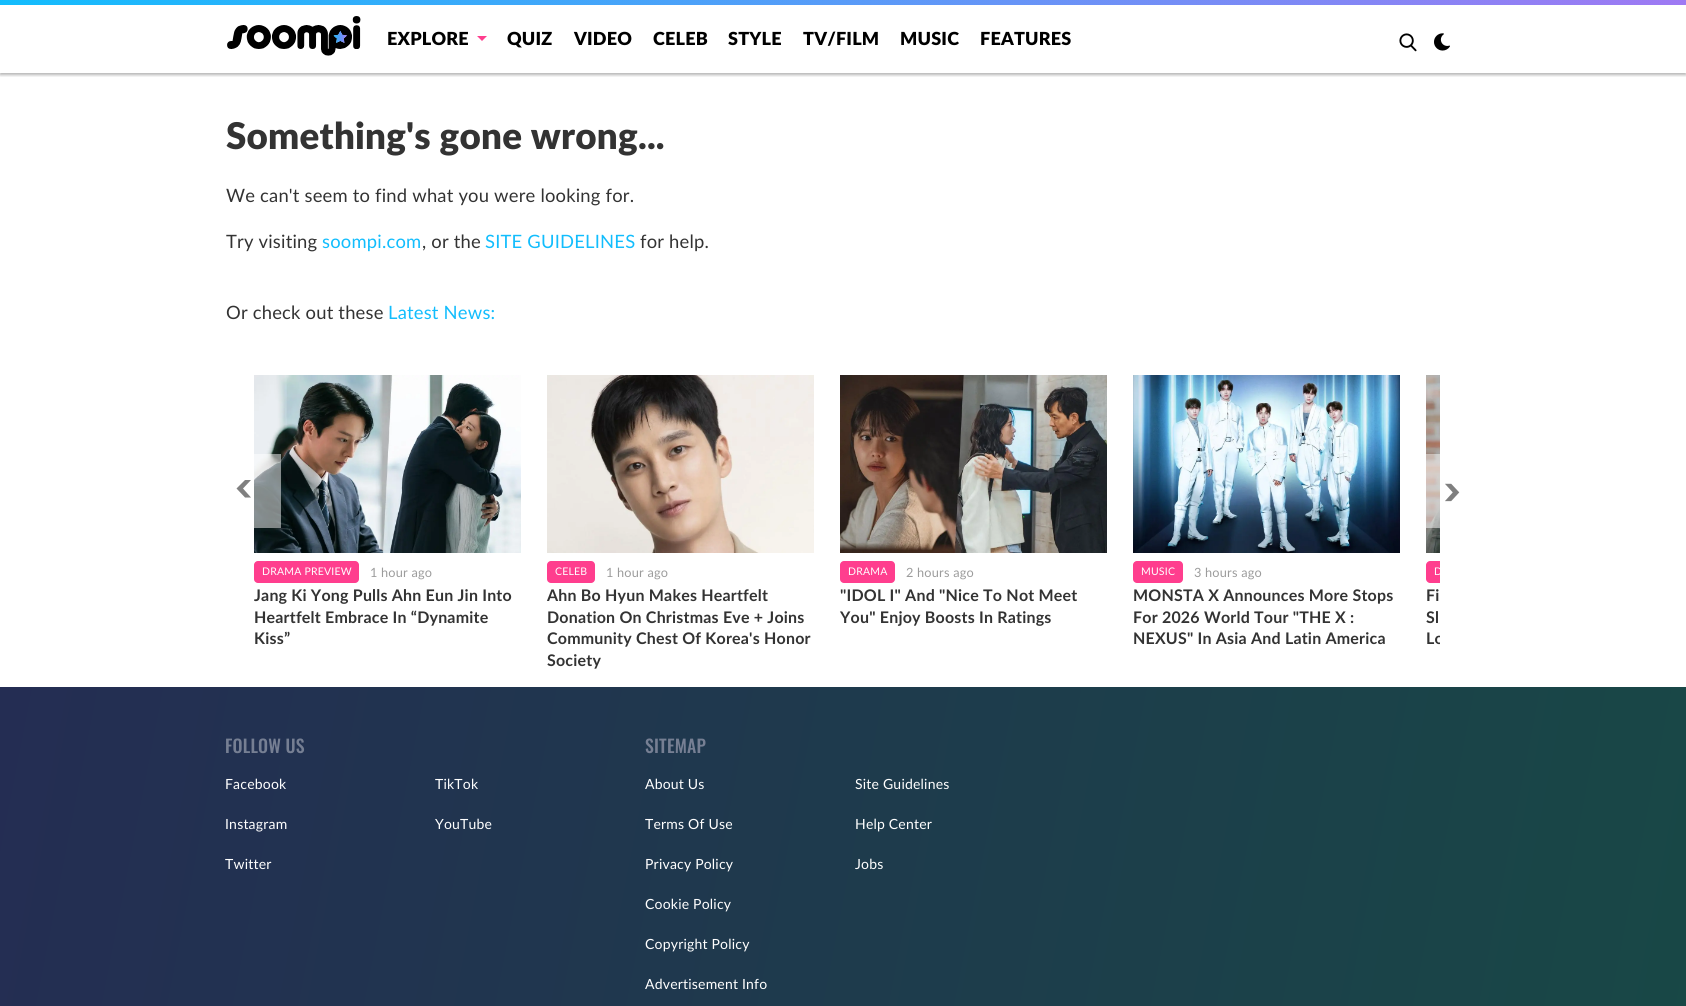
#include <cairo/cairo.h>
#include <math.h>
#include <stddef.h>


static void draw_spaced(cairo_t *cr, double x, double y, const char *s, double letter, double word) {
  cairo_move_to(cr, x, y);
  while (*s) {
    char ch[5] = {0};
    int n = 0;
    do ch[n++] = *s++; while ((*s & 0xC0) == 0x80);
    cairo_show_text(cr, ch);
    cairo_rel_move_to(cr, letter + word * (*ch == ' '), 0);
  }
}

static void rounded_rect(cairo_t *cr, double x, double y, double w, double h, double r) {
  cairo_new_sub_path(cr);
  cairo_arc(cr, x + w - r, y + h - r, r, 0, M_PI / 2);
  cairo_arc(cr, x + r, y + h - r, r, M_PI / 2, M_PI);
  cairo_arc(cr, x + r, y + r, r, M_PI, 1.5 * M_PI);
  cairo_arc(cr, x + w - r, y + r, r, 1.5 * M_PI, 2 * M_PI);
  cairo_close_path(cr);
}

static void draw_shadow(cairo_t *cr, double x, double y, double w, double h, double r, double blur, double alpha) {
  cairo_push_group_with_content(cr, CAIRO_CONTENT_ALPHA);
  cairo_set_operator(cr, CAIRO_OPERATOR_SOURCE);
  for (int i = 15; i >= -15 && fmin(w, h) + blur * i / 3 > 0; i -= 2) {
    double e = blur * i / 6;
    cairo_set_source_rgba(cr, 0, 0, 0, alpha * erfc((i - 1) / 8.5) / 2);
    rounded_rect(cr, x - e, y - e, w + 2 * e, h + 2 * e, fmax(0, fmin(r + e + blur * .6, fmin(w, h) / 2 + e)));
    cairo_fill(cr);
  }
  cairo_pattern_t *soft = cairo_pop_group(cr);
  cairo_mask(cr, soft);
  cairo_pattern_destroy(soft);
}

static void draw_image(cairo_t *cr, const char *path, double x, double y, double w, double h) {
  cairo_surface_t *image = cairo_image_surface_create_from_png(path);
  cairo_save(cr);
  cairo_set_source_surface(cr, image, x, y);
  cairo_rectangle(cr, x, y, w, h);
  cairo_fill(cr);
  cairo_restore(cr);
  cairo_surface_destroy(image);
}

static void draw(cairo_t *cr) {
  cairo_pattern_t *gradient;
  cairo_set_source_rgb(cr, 1, 1, 1);
  cairo_paint(cr);
  cairo_save(cr);
  cairo_rectangle(cr, 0, 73, 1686, 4);
  cairo_clip(cr);
  cairo_set_source_rgb(cr, 0, 0, 0);
  draw_shadow(cr, 0, 2, 1686, 73, 0, 1.5, 0.3);
  cairo_restore(cr);
  draw_image(cr, "images/1.png", 0, 0, 1686, 5);
  draw_image(cr, "images/2.png", 227, 16, 134, 40);
  cairo_set_source_rgb(cr, 1, 62 / 255.0, 142 / 255.0);
  cairo_new_path(cr);
  cairo_move_to(cr, 477, 36);
  cairo_line_to(cr, 487, 36);
  cairo_line_to(cr, 482, 41);
  cairo_close_path(cr);
  cairo_fill(cr);
  draw_image(cr, "images/3.png", 1399, 33, 18, 19);
  draw_image(cr, "images/4.png", 1434, 33, 16, 18);
  draw_image(cr, "images/6.png", 254, 375, 267, 178);
  cairo_set_source_rgba(cr, 1, 1, 1, 0.5);
  cairo_rectangle(cr, 254, 454, 27, 74);
  cairo_fill(cr);
  cairo_set_source_rgb(cr, 128 / 255.0, 128 / 255.0, 128 / 255.0);
  cairo_new_path(cr);
  cairo_move_to(cr, 236.5, 488.5);
  cairo_line_to(cr, 245, 480);
  cairo_line_to(cr, 251, 480);
  cairo_line_to(cr, 243, 488.5);
  cairo_line_to(cr, 251, 497.5);
  cairo_line_to(cr, 245, 497.5);
  cairo_close_path(cr);
  cairo_fill(cr);
  draw_image(cr, "images/10.png", 1426, 375, 14, 178);
  cairo_set_source_rgba(cr, 1, 1, 1, 0.5);
  cairo_rectangle(cr, 1426, 454, 14, 74);
  cairo_fill(cr);
  draw_image(cr, "images/5.png", 1445, 483, 15, 19);
  cairo_set_source_rgb(cr, 1, 62 / 255.0, 142 / 255.0);
  rounded_rect(cr, 254, 561, 105, 22, 4);
  cairo_fill(cr);
  draw_image(cr, "images/7.png", 547, 375, 267, 178);
  rounded_rect(cr, 547, 561, 48, 22, 4);
  cairo_fill(cr);
  draw_image(cr, "images/8.png", 840, 375, 267, 178);
  rounded_rect(cr, 840, 561, 55, 22, 4);
  cairo_fill(cr);
  draw_image(cr, "images/9.png", 1133, 375, 267, 178);
  rounded_rect(cr, 1133, 561, 50, 22, 4);
  cairo_fill(cr);
  cairo_new_path(cr);
  cairo_move_to(cr, 1430, 561);
  cairo_line_to(cr, 1440, 561);
  cairo_line_to(cr, 1440, 583);
  cairo_line_to(cr, 1430, 583);
  cairo_curve_to(cr, 1428, 583, 1426, 581, 1426, 579);
  cairo_line_to(cr, 1426, 565);
  cairo_curve_to(cr, 1426, 563, 1428, 561, 1430, 561);
  cairo_close_path(cr);
  cairo_fill(cr);
  gradient = cairo_pattern_create_linear(-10, 736, 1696, 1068);
  cairo_pattern_add_color_stop_rgba(gradient, 0, 36 / 255.0, 45 / 255.0, 83 / 255.0, 1);
  cairo_pattern_add_color_stop_rgba(gradient, 1, 24 / 255.0, 72 / 255.0, 70 / 255.0, 1);
  cairo_set_source(cr, gradient);
  cairo_pattern_destroy(gradient);
  cairo_rectangle(cr, 0, 687, 1686, 319);
  cairo_fill(cr);
  cairo_select_font_face(cr, "Lato Black", CAIRO_FONT_SLANT_NORMAL, CAIRO_FONT_WEIGHT_NORMAL);
  cairo_set_font_size(cr, 18);
  cairo_set_source_rgb(cr, 0, 0, 0);
  draw_spaced(cr, 387, 45, "EXPLORE", 0.2, 0);
  draw_spaced(cr, 507, 45, "QUIZ", 0.2, 0);
  draw_spaced(cr, 574, 45, "VIDEO", 0.2, 0);
  draw_spaced(cr, 653, 45, "CELEB", 0.2, 0);
  draw_spaced(cr, 728, 45, "STYLE", 0.2, 0);
  draw_spaced(cr, 803, 45, "TV/FILM", 0.2, 0);
  draw_spaced(cr, 900, 45, "MUSIC", 0.2, 0);
  draw_spaced(cr, 980, 45, "FEATURES", 0.2, 0);
  cairo_set_font_size(cr, 36.75);
  cairo_set_source_rgb(cr, 51 / 255.0, 51 / 255.0, 51 / 255.0);
  draw_spaced(cr, 226, 149, "Something's gone wrong...", 0.2, 0);
  cairo_select_font_face(cr, "Lato", CAIRO_FONT_SLANT_NORMAL, CAIRO_FONT_WEIGHT_NORMAL);
  cairo_set_font_size(cr, 18.4);
  draw_spaced(cr, 226, 202, "We can't seem to find what you were looking for.", 0.2, 0);
  draw_spaced(cr, 226, 248, "Try visiting", 0.2, 0);
  cairo_set_source_rgb(cr, 18 / 255.0, 189 / 255.0, 253 / 255.0);
  draw_spaced(cr, 322, 248, "soompi.com", 0.2, 0);
  cairo_set_source_rgb(cr, 51 / 255.0, 51 / 255.0, 51 / 255.0);
  draw_spaced(cr, 422, 248, ", or the", 0.2, 0);
  cairo_set_source_rgb(cr, 18 / 255.0, 189 / 255.0, 253 / 255.0);
  draw_spaced(cr, 485, 248, "SITE GUIDELINES", 0.2, 0);
  cairo_set_source_rgb(cr, 51 / 255.0, 51 / 255.0, 51 / 255.0);
  draw_spaced(cr, 640, 248, "for help.", 0.2, 0);
  draw_spaced(cr, 226, 319, "Or check out these", 0.2, 0);
  cairo_set_source_rgb(cr, 18 / 255.0, 189 / 255.0, 253 / 255.0);
  draw_spaced(cr, 388, 319, "Latest News:", 0.2, 0);
  cairo_set_font_size(cr, 10.5);
  cairo_set_source_rgb(cr, 1, 1, 1);
  draw_spaced(cr, 262, 575, "DRAMA PREVIEW", 0.2, 0);
  cairo_set_font_size(cr, 12.75);
  cairo_set_source_rgb(cr, 156 / 255.0, 156 / 255.0, 156 / 255.0);
  draw_spaced(cr, 370, 577, "1 hour ago", 0.2, 0);
  cairo_select_font_face(cr, "Lato", CAIRO_FONT_SLANT_NORMAL, CAIRO_FONT_WEIGHT_BOLD);
  cairo_set_font_size(cr, 16);
  cairo_set_source_rgb(cr, 51 / 255.0, 51 / 255.0, 51 / 255.0);
  draw_spaced(cr, 254, 601, "Jang Ki Yong Pulls Ahn Eun Jin Into", 0.2, 0);
  draw_spaced(cr, 254, 623, "Heartfelt Embrace In “Dynamite", 0.2, 0);
  draw_spaced(cr, 254, 644, "Kiss”", 0.2, 0);
  cairo_select_font_face(cr, "Lato", CAIRO_FONT_SLANT_NORMAL, CAIRO_FONT_WEIGHT_NORMAL);
  cairo_set_font_size(cr, 10.5);
  cairo_set_source_rgb(cr, 1, 1, 1);
  draw_spaced(cr, 555, 575, "CELEB", 0.2, 0);
  cairo_set_font_size(cr, 12.75);
  cairo_set_source_rgb(cr, 156 / 255.0, 156 / 255.0, 156 / 255.0);
  draw_spaced(cr, 606, 577, "1 hour ago", 0.2, 0);
  cairo_select_font_face(cr, "Lato", CAIRO_FONT_SLANT_NORMAL, CAIRO_FONT_WEIGHT_BOLD);
  cairo_set_font_size(cr, 16);
  cairo_set_source_rgb(cr, 51 / 255.0, 51 / 255.0, 51 / 255.0);
  draw_spaced(cr, 547, 601, "Ahn Bo Hyun Makes Heartfelt", 0.2, 0);
  draw_spaced(cr, 547, 623, "Donation On Christmas Eve + Joins", 0.2, 0);
  draw_spaced(cr, 547, 644, "Community Chest Of Korea's Honor", 0.2, 0);
  draw_spaced(cr, 547, 666, "Society", 0.2, 0);
  cairo_select_font_face(cr, "Lato", CAIRO_FONT_SLANT_NORMAL, CAIRO_FONT_WEIGHT_NORMAL);
  cairo_set_font_size(cr, 10.5);
  cairo_set_source_rgb(cr, 1, 1, 1);
  draw_spaced(cr, 848, 575, "DRAMA", 0.2, 0);
  cairo_set_font_size(cr, 12.75);
  cairo_set_source_rgb(cr, 156 / 255.0, 156 / 255.0, 156 / 255.0);
  draw_spaced(cr, 906, 577, "2 hours ago", 0.2, 0);
  cairo_select_font_face(cr, "Lato", CAIRO_FONT_SLANT_NORMAL, CAIRO_FONT_WEIGHT_BOLD);
  cairo_set_font_size(cr, 16);
  cairo_set_source_rgb(cr, 51 / 255.0, 51 / 255.0, 51 / 255.0);
  draw_spaced(cr, 840, 601, "\"IDOL I\" And \"Nice To Not Meet", 0.2, 0);
  draw_spaced(cr, 840, 623, "You\" Enjoy Boosts In Ratings", 0.2, 0);
  cairo_select_font_face(cr, "Lato", CAIRO_FONT_SLANT_NORMAL, CAIRO_FONT_WEIGHT_NORMAL);
  cairo_set_font_size(cr, 10.5);
  cairo_set_source_rgb(cr, 1, 1, 1);
  draw_spaced(cr, 1141, 575, "MUSIC", 0.2, 0);
  cairo_set_font_size(cr, 12.75);
  cairo_set_source_rgb(cr, 156 / 255.0, 156 / 255.0, 156 / 255.0);
  draw_spaced(cr, 1194, 577, "3 hours ago", 0.2, 0);
  cairo_select_font_face(cr, "Lato", CAIRO_FONT_SLANT_NORMAL, CAIRO_FONT_WEIGHT_BOLD);
  cairo_set_font_size(cr, 16);
  cairo_set_source_rgb(cr, 51 / 255.0, 51 / 255.0, 51 / 255.0);
  draw_spaced(cr, 1133, 601, "MONSTA X Announces More Stops", 0.2, 0);
  draw_spaced(cr, 1133, 623, "For 2026 World Tour \"THE X :", 0.2, 0);
  draw_spaced(cr, 1133, 644, "NEXUS\" In Asia And Latin America", 0.2, 0);
  cairo_save(cr);
  cairo_rectangle(cr, 246, 375, 1194, 296);
  cairo_clip(cr);
  cairo_select_font_face(cr, "Lato", CAIRO_FONT_SLANT_NORMAL, CAIRO_FONT_WEIGHT_NORMAL);
  cairo_set_font_size(cr, 10.5);
  cairo_set_source_rgb(cr, 1, 1, 1);
  draw_spaced(cr, 1434, 575, "D", 0.2, 0);
  cairo_restore(cr);
  draw_spaced(cr, 1426, 601, "Fi", 0.2, 0);
  draw_spaced(cr, 1426, 623, "Sl", 0.2, 0);
  cairo_save(cr);
  cairo_rectangle(cr, 246, 375, 1194, 296);
  cairo_clip(cr);
  draw_spaced(cr, 1426, 644, "Lo", 0.2, 0);
  cairo_restore(cr);
  cairo_select_font_face(cr, "Oswald Medium", CAIRO_FONT_SLANT_NORMAL, CAIRO_FONT_WEIGHT_NORMAL);
  cairo_set_font_size(cr, 17.75);
  cairo_set_source_rgb(cr, 118 / 255.0, 127 / 255.0, 147 / 255.0);
  draw_spaced(cr, 225, 753, "FOLLOW US", 0.2, 0);
  cairo_select_font_face(cr, "Lato", CAIRO_FONT_SLANT_NORMAL, CAIRO_FONT_WEIGHT_NORMAL);
  cairo_set_font_size(cr, 14);
  cairo_set_source_rgb(cr, 1, 1, 1);
  draw_spaced(cr, 225, 789, "Facebook", 0.2, 0);
  draw_spaced(cr, 435, 789, "TikTok", 0.2, 0);
  draw_spaced(cr, 225, 829, "Instagram", 0.2, 0);
  draw_spaced(cr, 435, 829, "YouTube", 0.2, 0);
  draw_spaced(cr, 225, 869, "Twitter", 0.2, 0);
  cairo_select_font_face(cr, "Oswald Medium", CAIRO_FONT_SLANT_NORMAL, CAIRO_FONT_WEIGHT_NORMAL);
  cairo_set_font_size(cr, 17.75);
  cairo_set_source_rgb(cr, 118 / 255.0, 127 / 255.0, 147 / 255.0);
  draw_spaced(cr, 645, 753, "SITEMAP", 0.2, 0);
  cairo_select_font_face(cr, "Lato", CAIRO_FONT_SLANT_NORMAL, CAIRO_FONT_WEIGHT_NORMAL);
  cairo_set_font_size(cr, 14);
  cairo_set_source_rgb(cr, 1, 1, 1);
  draw_spaced(cr, 645, 789, "About Us", 0.2, 0);
  draw_spaced(cr, 855, 789, "Site Guidelines", 0.2, 0);
  draw_spaced(cr, 645, 829, "Terms Of Use", 0.2, 0);
  draw_spaced(cr, 855, 829, "Help Center", 0.2, 0);
  draw_spaced(cr, 645, 869, "Privacy Policy", 0.2, 0);
  draw_spaced(cr, 855, 869, "Jobs", 0.2, 0);
  draw_spaced(cr, 645, 909, "Cookie Policy", 0.2, 0);
  draw_spaced(cr, 645, 949, "Copyright Policy", 0.2, 0);
  draw_spaced(cr, 645, 989, "Advertisement Info", 0.2, 0);
}

int main(void) {
  cairo_surface_t *surface = cairo_image_surface_create(CAIRO_FORMAT_RGB24, 1686, 1006);
  cairo_t *cr = cairo_create(surface);
  cairo_font_options_t *options = cairo_font_options_create();
  cairo_font_options_set_hint_metrics(options, CAIRO_HINT_METRICS_OFF);
  cairo_font_options_set_hint_style(options, CAIRO_HINT_STYLE_NONE);
  cairo_set_font_options(cr, options);
  cairo_set_miter_limit(cr, 4);
  draw(cr);
  cairo_surface_write_to_png(surface, "out.png");
  cairo_font_options_destroy(options);
  cairo_destroy(cr);
  cairo_surface_destroy(surface);
  return 0;
}
